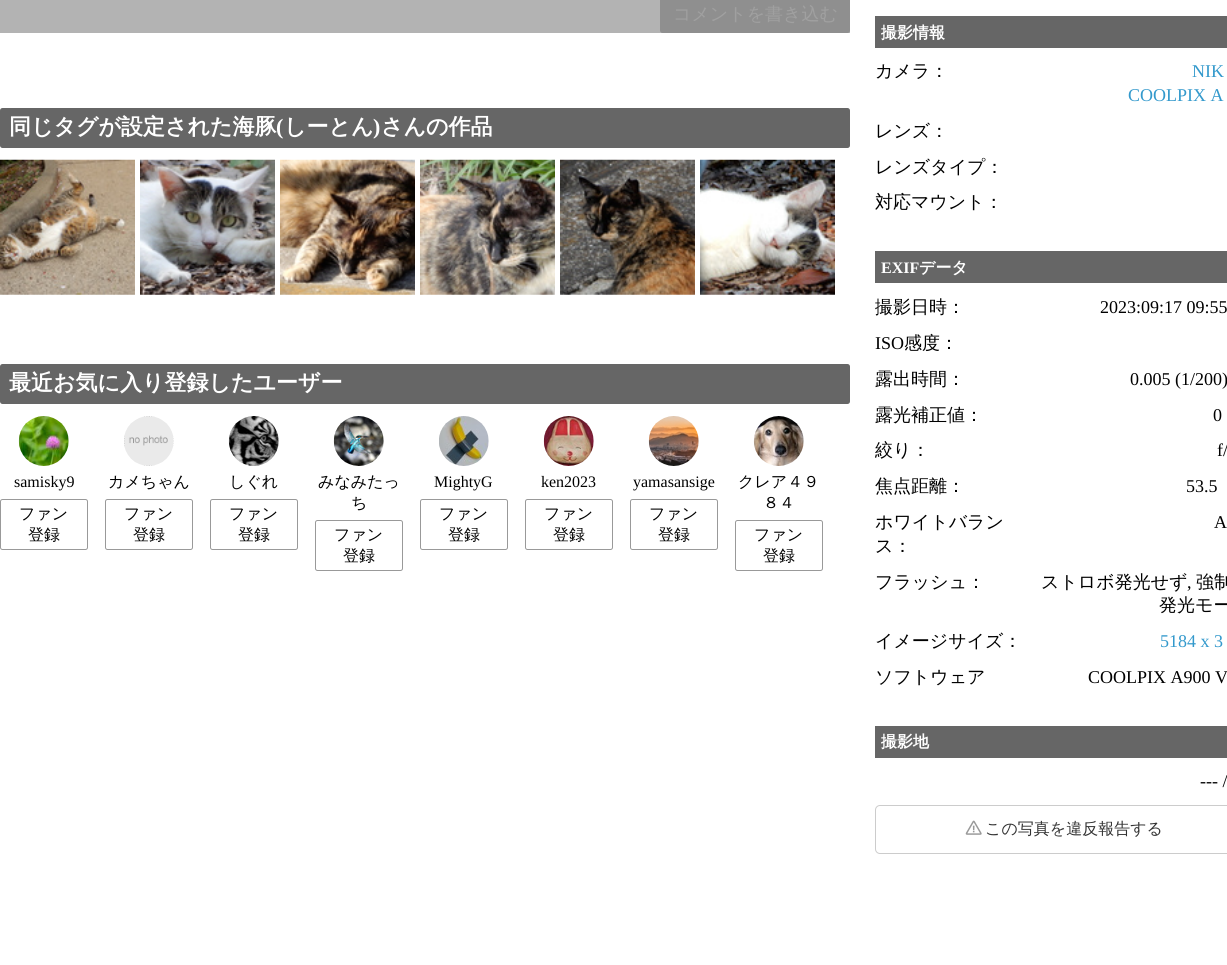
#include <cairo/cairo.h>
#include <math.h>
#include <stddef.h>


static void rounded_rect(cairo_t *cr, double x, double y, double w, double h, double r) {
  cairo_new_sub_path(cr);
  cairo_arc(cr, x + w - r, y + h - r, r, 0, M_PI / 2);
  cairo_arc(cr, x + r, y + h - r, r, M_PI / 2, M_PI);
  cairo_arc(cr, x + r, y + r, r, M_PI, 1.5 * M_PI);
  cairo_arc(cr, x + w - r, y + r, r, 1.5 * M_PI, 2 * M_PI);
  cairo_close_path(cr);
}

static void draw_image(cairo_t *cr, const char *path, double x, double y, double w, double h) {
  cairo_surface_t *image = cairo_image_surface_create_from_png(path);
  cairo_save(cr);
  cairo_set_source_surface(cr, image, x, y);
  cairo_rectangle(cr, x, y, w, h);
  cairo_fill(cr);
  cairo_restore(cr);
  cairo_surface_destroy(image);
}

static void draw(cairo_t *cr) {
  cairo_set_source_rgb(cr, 1, 1, 1);
  cairo_paint(cr);
  cairo_set_source_rgb(cr, 179 / 255.0, 179 / 255.0, 179 / 255.0);
  cairo_rectangle(cr, 0, 0, 850, 33);
  cairo_fill(cr);
  cairo_set_source_rgb(cr, 143 / 255.0, 143 / 255.0, 143 / 255.0);
  rounded_rect(cr, 660, -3, 190, 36, 2.5);
  cairo_fill(cr);
  cairo_set_source_rgb(cr, 102 / 255.0, 102 / 255.0, 102 / 255.0);
  rounded_rect(cr, 0, 108, 850, 40, 2.5);
  cairo_fill(cr);
  draw_image(cr, "images/1.png", 0, 159, 135, 136);
  draw_image(cr, "images/2.png", 140, 159, 135, 136);
  draw_image(cr, "images/3.png", 280, 159, 135, 136);
  draw_image(cr, "images/4.png", 420, 159, 135, 136);
  draw_image(cr, "images/5.png", 560, 159, 135, 136);
  draw_image(cr, "images/6.png", 700, 159, 135, 136);
  rounded_rect(cr, 0, 364, 850, 40, 2.5);
  cairo_fill(cr);
  draw_image(cr, "images/7.png", 18, 416, 51, 50);
  rounded_rect(cr, 0.5, 499.5, 87, 50, 2);
  cairo_set_source_rgb(cr, 153 / 255.0, 153 / 255.0, 153 / 255.0);
  cairo_set_line_width(cr, 1);
  cairo_stroke(cr);
  draw_image(cr, "images/8.png", 124, 416, 50, 50);
  rounded_rect(cr, 105.5, 499.5, 87, 50, 2);
  cairo_stroke(cr);
  draw_image(cr, "images/9.png", 228, 416, 51, 50);
  rounded_rect(cr, 210.5, 499.5, 87, 50, 2);
  cairo_stroke(cr);
  draw_image(cr, "images/10.png", 333, 416, 51, 50);
  rounded_rect(cr, 315.5, 520.5, 87, 50, 2);
  cairo_stroke(cr);
  draw_image(cr, "images/11.png", 439, 416, 50, 50);
  rounded_rect(cr, 420.5, 499.5, 87, 50, 2);
  cairo_stroke(cr);
  draw_image(cr, "images/12.png", 543, 416, 51, 50);
  rounded_rect(cr, 525.5, 499.5, 87, 50, 2);
  cairo_stroke(cr);
  draw_image(cr, "images/13.png", 648, 416, 51, 50);
  rounded_rect(cr, 630.5, 499.5, 87, 50, 2);
  cairo_stroke(cr);
  draw_image(cr, "images/14.png", 753, 416, 51, 50);
  rounded_rect(cr, 735.5, 520.5, 87, 50, 2);
  cairo_stroke(cr);
  cairo_set_source_rgb(cr, 102 / 255.0, 102 / 255.0, 102 / 255.0);
  cairo_rectangle(cr, 875, 16, 352, 32);
  cairo_fill(cr);
  cairo_rectangle(cr, 875, 251, 352, 32);
  cairo_fill(cr);
  cairo_rectangle(cr, 875, 726, 352, 32);
  cairo_fill(cr);
  rounded_rect(cr, 875.5, 805.5, 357, 48, 4.5);
  cairo_set_source_rgb(cr, 204 / 255.0, 204 / 255.0, 204 / 255.0);
  cairo_stroke(cr);
  draw_image(cr, "images/15.png", 965, 820, 17, 15);
  cairo_select_font_face(cr, "WenQuanYi Zen Hei Medium", CAIRO_FONT_SLANT_NORMAL, CAIRO_FONT_WEIGHT_NORMAL);
  cairo_set_font_size(cr, 18);
  cairo_set_source_rgb(cr, 160 / 255.0, 160 / 255.0, 160 / 255.0);
  cairo_move_to(cr, 673, 20);
  cairo_show_text(cr, "コメントを書き込む");
  cairo_select_font_face(cr, "WenQuanYi Zen Hei", CAIRO_FONT_SLANT_NORMAL, CAIRO_FONT_WEIGHT_BOLD);
  cairo_set_font_size(cr, 22);
  cairo_set_source_rgb(cr, 1, 1, 1);
  cairo_move_to(cr, 9, 134);
  cairo_show_text(cr, "同じタグが設定された海豚");
  cairo_select_font_face(cr, "Liberation Serif", CAIRO_FONT_SLANT_NORMAL, CAIRO_FONT_WEIGHT_BOLD);
  cairo_move_to(cr, 276, 134);
  cairo_show_text(cr, "(");
  cairo_select_font_face(cr, "WenQuanYi Zen Hei", CAIRO_FONT_SLANT_NORMAL, CAIRO_FONT_WEIGHT_BOLD);
  cairo_move_to(cr, 284, 134);
  cairo_show_text(cr, "しーとん");
  cairo_select_font_face(cr, "Liberation Serif", CAIRO_FONT_SLANT_NORMAL, CAIRO_FONT_WEIGHT_BOLD);
  cairo_move_to(cr, 373, 134);
  cairo_show_text(cr, ")");
  cairo_select_font_face(cr, "WenQuanYi Zen Hei", CAIRO_FONT_SLANT_NORMAL, CAIRO_FONT_WEIGHT_BOLD);
  cairo_move_to(cr, 381, 134);
  cairo_show_text(cr, "さんの作品");
  cairo_move_to(cr, 9, 390);
  cairo_show_text(cr, "最近お気に入り登録したユーザー");
  cairo_select_font_face(cr, "Liberation Serif", CAIRO_FONT_SLANT_NORMAL, CAIRO_FONT_WEIGHT_NORMAL);
  cairo_set_font_size(cr, 16);
  cairo_set_source_rgb(cr, 0, 0, 0);
  cairo_move_to(cr, 14, 487);
  cairo_show_text(cr, "samisky9");
  cairo_select_font_face(cr, "WenQuanYi Zen Hei Medium", CAIRO_FONT_SLANT_NORMAL, CAIRO_FONT_WEIGHT_NORMAL);
  cairo_move_to(cr, 19, 519);
  cairo_show_text(cr, "ファン");
  cairo_move_to(cr, 28, 540);
  cairo_show_text(cr, "登録");
  cairo_move_to(cr, 108, 487);
  cairo_show_text(cr, "カメちゃん");
  cairo_move_to(cr, 124, 519);
  cairo_show_text(cr, "ファン");
  cairo_move_to(cr, 133, 540);
  cairo_show_text(cr, "登録");
  cairo_move_to(cr, 229, 487);
  cairo_show_text(cr, "しぐれ");
  cairo_move_to(cr, 229, 519);
  cairo_show_text(cr, "ファン");
  cairo_move_to(cr, 238, 540);
  cairo_show_text(cr, "登録");
  cairo_move_to(cr, 318, 487);
  cairo_show_text(cr, "みなみたっ");
  cairo_move_to(cr, 351, 508);
  cairo_show_text(cr, "ち");
  cairo_move_to(cr, 334, 540);
  cairo_show_text(cr, "ファン");
  cairo_move_to(cr, 343, 561);
  cairo_show_text(cr, "登録");
  cairo_select_font_face(cr, "Liberation Serif", CAIRO_FONT_SLANT_NORMAL, CAIRO_FONT_WEIGHT_NORMAL);
  cairo_move_to(cr, 434, 487);
  cairo_show_text(cr, "MightyG");
  cairo_select_font_face(cr, "WenQuanYi Zen Hei Medium", CAIRO_FONT_SLANT_NORMAL, CAIRO_FONT_WEIGHT_NORMAL);
  cairo_move_to(cr, 439, 519);
  cairo_show_text(cr, "ファン");
  cairo_move_to(cr, 448, 540);
  cairo_show_text(cr, "登録");
  cairo_select_font_face(cr, "Liberation Serif", CAIRO_FONT_SLANT_NORMAL, CAIRO_FONT_WEIGHT_NORMAL);
  cairo_move_to(cr, 541, 487);
  cairo_show_text(cr, "ken2023");
  cairo_select_font_face(cr, "WenQuanYi Zen Hei Medium", CAIRO_FONT_SLANT_NORMAL, CAIRO_FONT_WEIGHT_NORMAL);
  cairo_move_to(cr, 544, 519);
  cairo_show_text(cr, "ファン");
  cairo_move_to(cr, 553, 540);
  cairo_show_text(cr, "登録");
  cairo_select_font_face(cr, "Liberation Serif", CAIRO_FONT_SLANT_NORMAL, CAIRO_FONT_WEIGHT_NORMAL);
  cairo_move_to(cr, 633, 487);
  cairo_show_text(cr, "yamasansige");
  cairo_select_font_face(cr, "WenQuanYi Zen Hei Medium", CAIRO_FONT_SLANT_NORMAL, CAIRO_FONT_WEIGHT_NORMAL);
  cairo_move_to(cr, 649, 519);
  cairo_show_text(cr, "ファン");
  cairo_move_to(cr, 658, 540);
  cairo_show_text(cr, "登録");
  cairo_move_to(cr, 738, 487);
  cairo_show_text(cr, "クレア４９");
  cairo_move_to(cr, 763, 508);
  cairo_show_text(cr, "８４");
  cairo_move_to(cr, 754, 540);
  cairo_show_text(cr, "ファン");
  cairo_move_to(cr, 763, 561);
  cairo_show_text(cr, "登録");
  cairo_select_font_face(cr, "WenQuanYi Zen Hei", CAIRO_FONT_SLANT_NORMAL, CAIRO_FONT_WEIGHT_BOLD);
  cairo_set_source_rgb(cr, 1, 1, 1);
  cairo_move_to(cr, 881, 38);
  cairo_show_text(cr, "撮影情報");
  cairo_select_font_face(cr, "WenQuanYi Zen Hei Medium", CAIRO_FONT_SLANT_NORMAL, CAIRO_FONT_WEIGHT_NORMAL);
  cairo_set_font_size(cr, 18);
  cairo_set_source_rgb(cr, 0, 0, 0);
  cairo_move_to(cr, 875, 77);
  cairo_show_text(cr, "カメラ：");
  cairo_select_font_face(cr, "Liberation Serif", CAIRO_FONT_SLANT_NORMAL, CAIRO_FONT_WEIGHT_NORMAL);
  cairo_set_source_rgb(cr, 51 / 255.0, 153 / 255.0, 204 / 255.0);
  cairo_move_to(cr, 1192, 77);
  cairo_show_text(cr, "NIK");
  cairo_move_to(cr, 1128, 101);
  cairo_show_text(cr, "COOLPIX A");
  cairo_select_font_face(cr, "WenQuanYi Zen Hei Medium", CAIRO_FONT_SLANT_NORMAL, CAIRO_FONT_WEIGHT_NORMAL);
  cairo_set_source_rgb(cr, 0, 0, 0);
  cairo_move_to(cr, 875, 137);
  cairo_show_text(cr, "レンズ：");
  cairo_move_to(cr, 875, 173);
  cairo_show_text(cr, "レンズタイプ：");
  cairo_move_to(cr, 875, 208);
  cairo_show_text(cr, "対応マウント：");
  cairo_select_font_face(cr, "Liberation Serif", CAIRO_FONT_SLANT_NORMAL, CAIRO_FONT_WEIGHT_BOLD);
  cairo_set_font_size(cr, 16);
  cairo_set_source_rgb(cr, 1, 1, 1);
  cairo_move_to(cr, 881, 273);
  cairo_show_text(cr, "EXIF");
  cairo_select_font_face(cr, "WenQuanYi Zen Hei", CAIRO_FONT_SLANT_NORMAL, CAIRO_FONT_WEIGHT_BOLD);
  cairo_move_to(cr, 919, 273);
  cairo_show_text(cr, "データ");
  cairo_select_font_face(cr, "WenQuanYi Zen Hei Medium", CAIRO_FONT_SLANT_NORMAL, CAIRO_FONT_WEIGHT_NORMAL);
  cairo_set_font_size(cr, 18);
  cairo_set_source_rgb(cr, 0, 0, 0);
  cairo_move_to(cr, 875, 313);
  cairo_show_text(cr, "撮影日時：");
  cairo_select_font_face(cr, "Liberation Serif", CAIRO_FONT_SLANT_NORMAL, CAIRO_FONT_WEIGHT_NORMAL);
  cairo_move_to(cr, 1100, 313);
  cairo_show_text(cr, "2023:09:17 09:55");
  cairo_move_to(cr, 875, 349);
  cairo_show_text(cr, "ISO");
  cairo_select_font_face(cr, "WenQuanYi Zen Hei Medium", CAIRO_FONT_SLANT_NORMAL, CAIRO_FONT_WEIGHT_NORMAL);
  cairo_move_to(cr, 904, 349);
  cairo_show_text(cr, "感度：");
  cairo_move_to(cr, 875, 385);
  cairo_show_text(cr, "露出時間：");
  cairo_select_font_face(cr, "Liberation Serif", CAIRO_FONT_SLANT_NORMAL, CAIRO_FONT_WEIGHT_NORMAL);
  cairo_move_to(cr, 1130, 385);
  cairo_show_text(cr, "0.005 (1/200)");
  cairo_select_font_face(cr, "WenQuanYi Zen Hei Medium", CAIRO_FONT_SLANT_NORMAL, CAIRO_FONT_WEIGHT_NORMAL);
  cairo_move_to(cr, 875, 421);
  cairo_show_text(cr, "露光補正値：");
  cairo_select_font_face(cr, "Liberation Serif", CAIRO_FONT_SLANT_NORMAL, CAIRO_FONT_WEIGHT_NORMAL);
  cairo_move_to(cr, 1213, 421);
  cairo_show_text(cr, "0");
  cairo_select_font_face(cr, "WenQuanYi Zen Hei Medium", CAIRO_FONT_SLANT_NORMAL, CAIRO_FONT_WEIGHT_NORMAL);
  cairo_move_to(cr, 875, 456);
  cairo_show_text(cr, "絞り：");
  cairo_select_font_face(cr, "Liberation Serif", CAIRO_FONT_SLANT_NORMAL, CAIRO_FONT_WEIGHT_NORMAL);
  cairo_move_to(cr, 1217, 456);
  cairo_show_text(cr, "f/");
  cairo_select_font_face(cr, "WenQuanYi Zen Hei Medium", CAIRO_FONT_SLANT_NORMAL, CAIRO_FONT_WEIGHT_NORMAL);
  cairo_move_to(cr, 875, 492);
  cairo_show_text(cr, "焦点距離：");
  cairo_select_font_face(cr, "Liberation Serif", CAIRO_FONT_SLANT_NORMAL, CAIRO_FONT_WEIGHT_NORMAL);
  cairo_move_to(cr, 1186, 492);
  cairo_show_text(cr, "53.5");
  cairo_select_font_face(cr, "WenQuanYi Zen Hei Medium", CAIRO_FONT_SLANT_NORMAL, CAIRO_FONT_WEIGHT_NORMAL);
  cairo_move_to(cr, 875, 528);
  cairo_show_text(cr, "ホワイトバラン");
  cairo_move_to(cr, 875, 552);
  cairo_show_text(cr, "ス：");
  cairo_select_font_face(cr, "Liberation Serif", CAIRO_FONT_SLANT_NORMAL, CAIRO_FONT_WEIGHT_NORMAL);
  cairo_move_to(cr, 1214, 528);
  cairo_show_text(cr, "A");
  cairo_select_font_face(cr, "WenQuanYi Zen Hei Medium", CAIRO_FONT_SLANT_NORMAL, CAIRO_FONT_WEIGHT_NORMAL);
  cairo_move_to(cr, 875, 588);
  cairo_show_text(cr, "フラッシュ：");
  cairo_move_to(cr, 1041, 588);
  cairo_show_text(cr, "ストロボ発光せず");
  cairo_select_font_face(cr, "Liberation Serif", CAIRO_FONT_SLANT_NORMAL, CAIRO_FONT_WEIGHT_NORMAL);
  cairo_move_to(cr, 1187, 588);
  cairo_show_text(cr, ",");
  cairo_select_font_face(cr, "WenQuanYi Zen Hei Medium", CAIRO_FONT_SLANT_NORMAL, CAIRO_FONT_WEIGHT_NORMAL);
  cairo_move_to(cr, 1196, 588);
  cairo_show_text(cr, "強制");
  cairo_move_to(cr, 1159, 611);
  cairo_show_text(cr, "発光モー");
  cairo_move_to(cr, 875, 647);
  cairo_show_text(cr, "イメージサイズ：");
  cairo_select_font_face(cr, "Liberation Serif", CAIRO_FONT_SLANT_NORMAL, CAIRO_FONT_WEIGHT_NORMAL);
  cairo_set_source_rgb(cr, 51 / 255.0, 153 / 255.0, 204 / 255.0);
  cairo_move_to(cr, 1160, 647);
  cairo_show_text(cr, "5184 x 3");
  cairo_select_font_face(cr, "WenQuanYi Zen Hei Medium", CAIRO_FONT_SLANT_NORMAL, CAIRO_FONT_WEIGHT_NORMAL);
  cairo_set_source_rgb(cr, 0, 0, 0);
  cairo_move_to(cr, 875, 683);
  cairo_show_text(cr, "ソフトウェア");
  cairo_select_font_face(cr, "Liberation Serif", CAIRO_FONT_SLANT_NORMAL, CAIRO_FONT_WEIGHT_NORMAL);
  cairo_move_to(cr, 1088, 683);
  cairo_show_text(cr, "COOLPIX A900 V");
  cairo_select_font_face(cr, "WenQuanYi Zen Hei", CAIRO_FONT_SLANT_NORMAL, CAIRO_FONT_WEIGHT_BOLD);
  cairo_set_font_size(cr, 16);
  cairo_set_source_rgb(cr, 1, 1, 1);
  cairo_move_to(cr, 881, 747);
  cairo_show_text(cr, "撮影地");
  cairo_select_font_face(cr, "Liberation Serif", CAIRO_FONT_SLANT_NORMAL, CAIRO_FONT_WEIGHT_NORMAL);
  cairo_set_font_size(cr, 18);
  cairo_set_source_rgb(cr, 0, 0, 0);
  cairo_move_to(cr, 1200, 787);
  cairo_show_text(cr, "--- /");
  cairo_select_font_face(cr, "WenQuanYi Zen Hei Medium", CAIRO_FONT_SLANT_NORMAL, CAIRO_FONT_WEIGHT_NORMAL);
  cairo_set_font_size(cr, 16);
  cairo_set_source_rgb(cr, 51 / 255.0, 51 / 255.0, 51 / 255.0);
  cairo_move_to(cr, 985, 834);
  cairo_show_text(cr, "この写真を違反報告する");
}

int main(void) {
  cairo_surface_t *surface = cairo_image_surface_create(CAIRO_FORMAT_RGB24, 1227, 965);
  cairo_t *cr = cairo_create(surface);
  cairo_font_options_t *options = cairo_font_options_create();
  cairo_font_options_set_hint_metrics(options, CAIRO_HINT_METRICS_OFF);
  cairo_font_options_set_hint_style(options, CAIRO_HINT_STYLE_NONE);
  cairo_set_font_options(cr, options);
  cairo_set_miter_limit(cr, 4);
  draw(cr);
  cairo_surface_write_to_png(surface, "out.png");
  cairo_font_options_destroy(options);
  cairo_destroy(cr);
  cairo_surface_destroy(surface);
  return 0;
}
